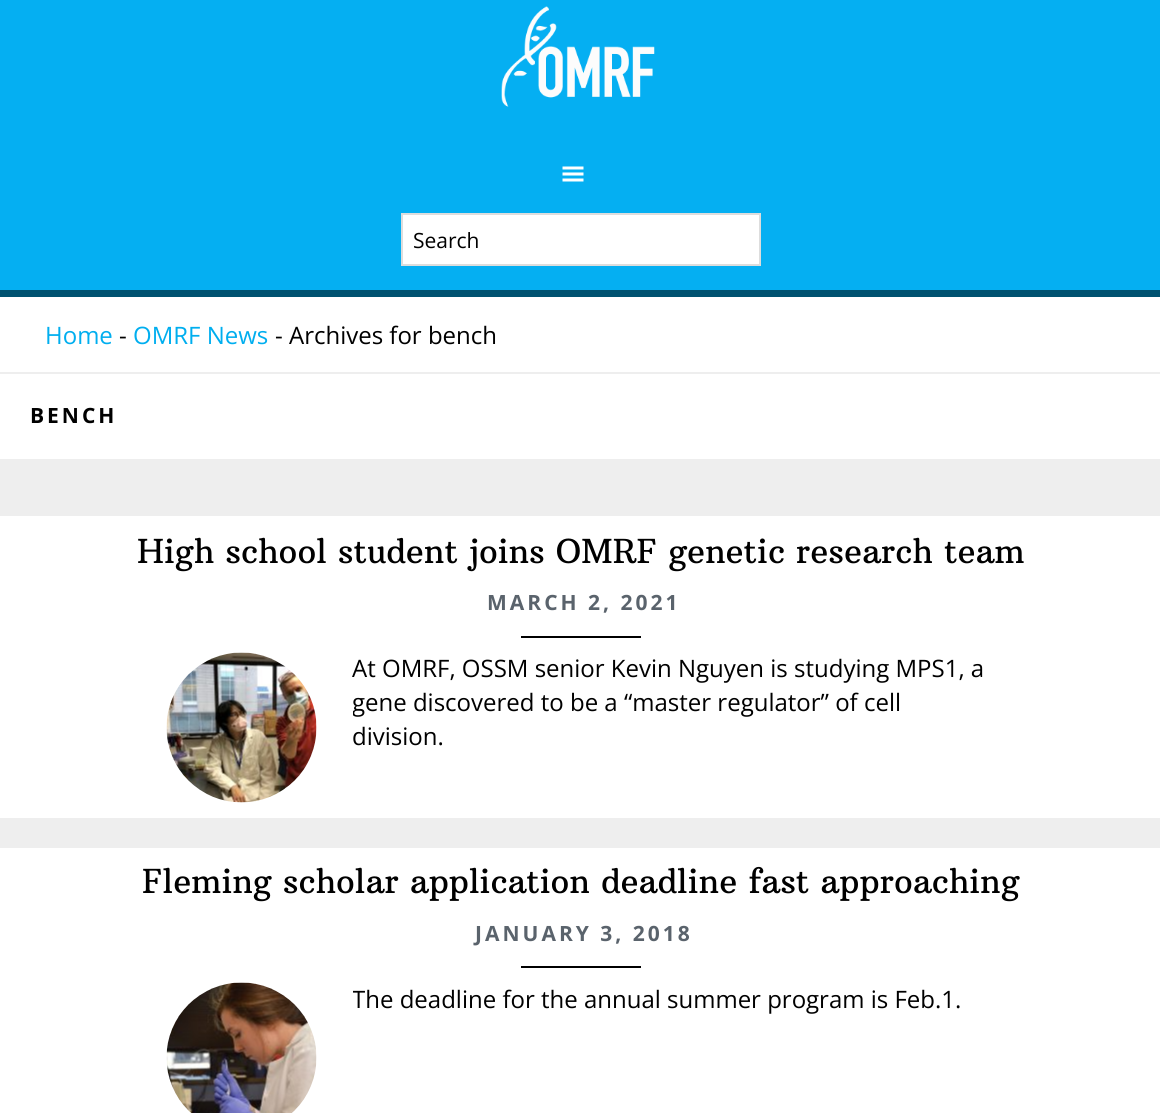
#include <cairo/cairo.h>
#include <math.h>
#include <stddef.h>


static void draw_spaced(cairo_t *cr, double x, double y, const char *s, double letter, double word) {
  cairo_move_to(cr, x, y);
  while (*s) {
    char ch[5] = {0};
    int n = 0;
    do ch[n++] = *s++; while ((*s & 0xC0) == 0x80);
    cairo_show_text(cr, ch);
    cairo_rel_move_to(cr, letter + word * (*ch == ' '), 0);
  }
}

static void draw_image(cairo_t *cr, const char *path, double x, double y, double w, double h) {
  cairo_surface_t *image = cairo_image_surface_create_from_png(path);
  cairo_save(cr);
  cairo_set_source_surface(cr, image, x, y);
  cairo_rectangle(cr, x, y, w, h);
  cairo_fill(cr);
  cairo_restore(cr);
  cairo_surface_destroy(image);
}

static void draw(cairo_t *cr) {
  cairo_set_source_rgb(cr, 238 / 255.0, 238 / 255.0, 238 / 255.0);
  cairo_paint(cr);
  cairo_set_source_rgb(cr, 5 / 255.0, 175 / 255.0, 242 / 255.0);
  cairo_rectangle(cr, 0, 0, 1160, 290);
  cairo_fill(cr);
  cairo_set_source_rgb(cr, 0, 82 / 255.0, 112 / 255.0);
  cairo_rectangle(cr, 0, 290, 1160, 7);
  cairo_fill(cr);
  draw_image(cr, "images/1.png", 501, 6, 154, 101);
  draw_image(cr, "images/2.png", 562, 166, 22, 16);
  cairo_set_source_rgb(cr, 1, 1, 1);
  cairo_rectangle(cr, 402, 214, 358, 51);
  cairo_fill_preserve(cr);
  cairo_set_source_rgb(cr, 221 / 255.0, 221 / 255.0, 221 / 255.0);
  cairo_stroke(cr);
  cairo_set_source_rgb(cr, 1, 1, 1);
  cairo_rectangle(cr, 0, 297, 1160, 75);
  cairo_fill(cr);
  cairo_rectangle(cr, 0, 374, 1160, 85);
  cairo_fill(cr);
  cairo_rectangle(cr, 0, 516, 1160, 302);
  cairo_fill(cr);
  cairo_set_source_rgb(cr, 0, 0, 0);
  cairo_rectangle(cr, 521, 636, 120, 2);
  cairo_fill(cr);
  draw_image(cr, "images/3.png", 166, 652, 151, 151);
  cairo_set_source_rgb(cr, 1, 1, 1);
  cairo_rectangle(cr, 0, 848, 1160, 265);
  cairo_fill(cr);
  cairo_set_source_rgb(cr, 0, 0, 0);
  cairo_rectangle(cr, 521, 966, 120, 2);
  cairo_fill(cr);
  draw_image(cr, "images/4.png", 166, 982, 151, 131);
  cairo_select_font_face(cr, "Open Sans", CAIRO_FONT_SLANT_NORMAL, CAIRO_FONT_WEIGHT_NORMAL);
  cairo_set_font_size(cr, 21);
  cairo_move_to(cr, 413, 248);
  cairo_show_text(cr, "Search");
  cairo_set_font_size(cr, 24);
  cairo_set_source_rgb(cr, 0, 174 / 255.0, 239 / 255.0);
  cairo_move_to(cr, 45, 344);
  cairo_show_text(cr, "Home");
  cairo_set_source_rgb(cr, 0, 0, 0);
  cairo_move_to(cr, 119, 344);
  cairo_show_text(cr, "-");
  cairo_set_source_rgb(cr, 0, 174 / 255.0, 239 / 255.0);
  cairo_move_to(cr, 133, 344);
  cairo_show_text(cr, "OMRF News");
  cairo_set_source_rgb(cr, 0, 0, 0);
  cairo_move_to(cr, 275, 344);
  cairo_show_text(cr, "- Archives for bench");
  cairo_select_font_face(cr, "Open Sans", CAIRO_FONT_SLANT_NORMAL, CAIRO_FONT_WEIGHT_BOLD);
  cairo_set_font_size(cr, 21);
  draw_spaced(cr, 30, 423, "BENCH", 3, 0);
  cairo_select_font_face(cr, "Arbutus Slab", CAIRO_FONT_SLANT_NORMAL, CAIRO_FONT_WEIGHT_NORMAL);
  cairo_set_font_size(cr, 33);
  cairo_move_to(cr, 137, 563);
  cairo_show_text(cr, "High school student joins OMRF genetic research team");
  cairo_select_font_face(cr, "Open Sans", CAIRO_FONT_SLANT_NORMAL, CAIRO_FONT_WEIGHT_BOLD);
  cairo_set_font_size(cr, 21);
  cairo_set_source_rgb(cr, 90 / 255.0, 99 / 255.0, 108 / 255.0);
  draw_spaced(cr, 487, 610, "MARCH 2, 2021", 3, 0);
  cairo_select_font_face(cr, "Open Sans", CAIRO_FONT_SLANT_NORMAL, CAIRO_FONT_WEIGHT_NORMAL);
  cairo_set_font_size(cr, 24);
  cairo_set_source_rgb(cr, 0, 0, 0);
  cairo_move_to(cr, 352, 677);
  cairo_show_text(cr, "At OMRF, OSSM senior Kevin Nguyen is studying MPS1, a");
  cairo_save(cr);
  cairo_rectangle(cr, 353, 653, 642, 100);
  cairo_clip(cr);
  cairo_move_to(cr, 352, 711);
  cairo_show_text(cr, "gene discovered to be a “master regulator” of cell");
  cairo_restore(cr);
  cairo_move_to(cr, 352, 745);
  cairo_show_text(cr, "division.");
  cairo_select_font_face(cr, "Arbutus Slab", CAIRO_FONT_SLANT_NORMAL, CAIRO_FONT_WEIGHT_NORMAL);
  cairo_set_font_size(cr, 33);
  cairo_move_to(cr, 142, 893);
  cairo_show_text(cr, "Fleming scholar application deadline fast approaching");
  cairo_select_font_face(cr, "Open Sans", CAIRO_FONT_SLANT_NORMAL, CAIRO_FONT_WEIGHT_BOLD);
  cairo_set_font_size(cr, 21);
  cairo_set_source_rgb(cr, 90 / 255.0, 99 / 255.0, 108 / 255.0);
  draw_spaced(cr, 475, 941, "JANUARY 3, 2018", 3, 0);
  cairo_save(cr);
  cairo_rectangle(cr, 353, 983, 642, 33);
  cairo_clip(cr);
  cairo_select_font_face(cr, "Open Sans", CAIRO_FONT_SLANT_NORMAL, CAIRO_FONT_WEIGHT_NORMAL);
  cairo_set_font_size(cr, 24);
  cairo_set_source_rgb(cr, 0, 0, 0);
  cairo_move_to(cr, 352, 1008);
  cairo_show_text(cr, "The deadline for the annual summer program is Feb.1.");
  cairo_restore(cr);
}

int main(void) {
  cairo_surface_t *surface = cairo_image_surface_create(CAIRO_FORMAT_RGB24, 1160, 1113);
  cairo_t *cr = cairo_create(surface);
  cairo_font_options_t *options = cairo_font_options_create();
  cairo_font_options_set_hint_metrics(options, CAIRO_HINT_METRICS_OFF);
  cairo_font_options_set_hint_style(options, CAIRO_HINT_STYLE_NONE);
  cairo_set_font_options(cr, options);
  cairo_set_miter_limit(cr, 4);
  draw(cr);
  cairo_surface_write_to_png(surface, "out.png");
  cairo_font_options_destroy(options);
  cairo_destroy(cr);
  cairo_surface_destroy(surface);
  return 0;
}
